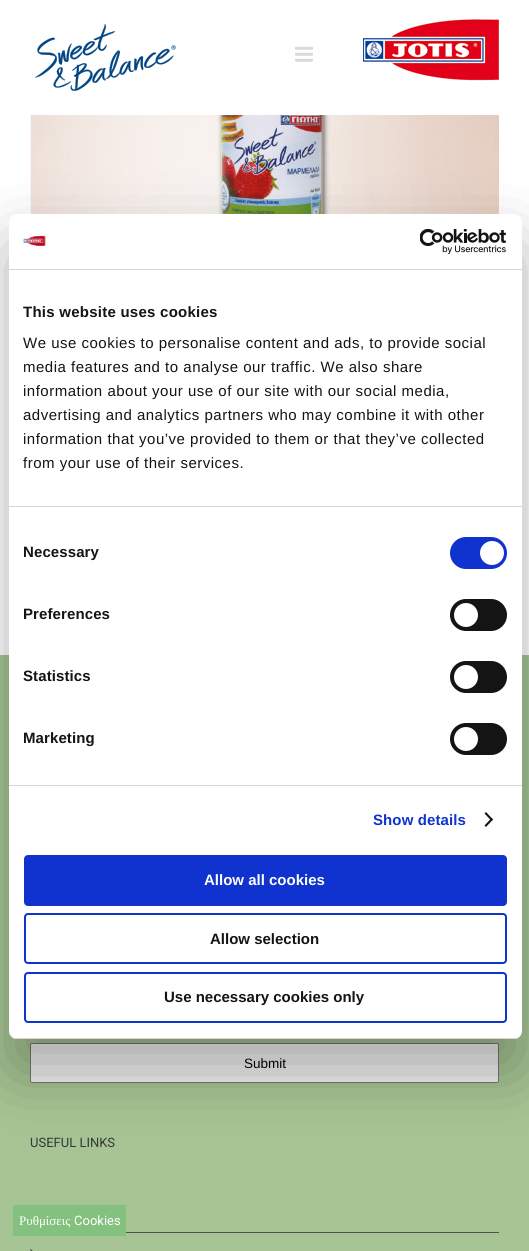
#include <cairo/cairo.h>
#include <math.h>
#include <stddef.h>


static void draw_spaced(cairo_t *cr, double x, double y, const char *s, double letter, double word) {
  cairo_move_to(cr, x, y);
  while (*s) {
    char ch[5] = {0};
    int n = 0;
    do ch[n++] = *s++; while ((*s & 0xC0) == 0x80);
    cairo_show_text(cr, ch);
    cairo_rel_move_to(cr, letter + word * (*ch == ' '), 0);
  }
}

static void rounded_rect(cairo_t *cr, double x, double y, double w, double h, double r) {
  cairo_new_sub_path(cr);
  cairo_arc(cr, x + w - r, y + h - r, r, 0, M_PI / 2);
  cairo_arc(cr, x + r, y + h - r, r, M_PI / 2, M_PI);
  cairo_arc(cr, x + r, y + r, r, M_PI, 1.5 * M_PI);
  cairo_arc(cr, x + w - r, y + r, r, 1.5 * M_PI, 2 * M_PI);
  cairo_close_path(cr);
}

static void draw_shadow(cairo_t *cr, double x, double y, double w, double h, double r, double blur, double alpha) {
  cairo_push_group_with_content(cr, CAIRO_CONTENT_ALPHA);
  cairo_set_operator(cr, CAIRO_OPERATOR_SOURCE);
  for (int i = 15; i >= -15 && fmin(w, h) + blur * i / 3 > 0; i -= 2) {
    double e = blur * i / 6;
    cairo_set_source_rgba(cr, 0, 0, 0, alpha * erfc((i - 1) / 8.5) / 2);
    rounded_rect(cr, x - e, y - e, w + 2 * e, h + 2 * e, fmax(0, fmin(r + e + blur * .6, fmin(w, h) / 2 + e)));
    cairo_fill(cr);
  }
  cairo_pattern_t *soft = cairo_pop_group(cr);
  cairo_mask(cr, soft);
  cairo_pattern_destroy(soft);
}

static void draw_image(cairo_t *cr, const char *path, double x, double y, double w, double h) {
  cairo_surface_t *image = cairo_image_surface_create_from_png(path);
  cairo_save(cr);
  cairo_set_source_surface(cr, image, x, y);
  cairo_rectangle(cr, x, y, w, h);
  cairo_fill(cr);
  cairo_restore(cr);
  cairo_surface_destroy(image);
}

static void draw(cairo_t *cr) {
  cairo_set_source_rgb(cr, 1, 1, 1);
  cairo_paint(cr);
  draw_image(cr, "images/1.png", 35, 24, 141, 67);
  draw_image(cr, "images/2.png", 295, 46, 18, 16);
  draw_image(cr, "images/3.png", 363, 19, 136, 62);
  draw_image(cr, "images/4.png", 30, 115, 469, 99);
  cairo_set_source_rgb(cr, 167 / 255.0, 197 / 255.0, 148 / 255.0);
  cairo_rectangle(cr, 0, 655, 529, 596);
  cairo_fill(cr);
  cairo_set_source_rgb(cr, 239 / 255.0, 239 / 255.0, 239 / 255.0);
  rounded_rect(cr, 30.5, 1043.5, 468, 39, 1.5);
  cairo_fill_preserve(cr);
  cairo_set_source_rgb(cr, 118 / 255.0, 118 / 255.0, 118 / 255.0);
  cairo_set_line_width(cr, 1);
  cairo_stroke(cr);
  cairo_set_source_rgb(cr, 0, 0, 0);
  draw_shadow(cr, 9, 246, 513, 825, 8, 34, 0.3);
  cairo_set_source_rgb(cr, 1, 1, 1);
  rounded_rect(cr, 9, 214, 513, 825, 8);
  cairo_fill(cr);
  cairo_set_source_rgb(cr, 214 / 255.0, 214 / 255.0, 214 / 255.0);
  cairo_rectangle(cr, 9, 269, 513, 1);
  cairo_fill(cr);
  draw_image(cr, "images/5.png", 23, 235, 23, 12);
  draw_image(cr, "images/6.png", 420, 229, 87, 25);
  cairo_rectangle(cr, 9, 506, 513, 1);
  cairo_fill(cr);
  cairo_rectangle(cr, 9, 785, 513, 1);
  cairo_fill(cr);
  cairo_set_source_rgb(cr, 16 / 255.0, 50 / 255.0, 207 / 255.0);
  rounded_rect(cr, 450, 537, 57, 32, 16);
  cairo_fill(cr);
  cairo_set_source_rgb(cr, 1, 1, 1);
  cairo_arc(cr, 492, 553, 12, 0, 2 * M_PI);
  cairo_fill(cr);
  cairo_set_source_rgb(cr, 20 / 255.0, 20 / 255.0, 20 / 255.0);
  rounded_rect(cr, 450, 599, 57, 32, 16);
  cairo_fill(cr);
  cairo_set_source_rgb(cr, 1, 1, 1);
  cairo_arc(cr, 466, 615, 12, 0, 2 * M_PI);
  cairo_fill(cr);
  cairo_set_source_rgb(cr, 20 / 255.0, 20 / 255.0, 20 / 255.0);
  rounded_rect(cr, 450, 661, 57, 32, 16);
  cairo_fill(cr);
  cairo_set_source_rgb(cr, 1, 1, 1);
  cairo_arc(cr, 466, 677, 12, 0, 2 * M_PI);
  cairo_fill(cr);
  cairo_set_source_rgb(cr, 20 / 255.0, 20 / 255.0, 20 / 255.0);
  rounded_rect(cr, 450, 723, 57, 32, 16);
  cairo_fill(cr);
  cairo_set_source_rgb(cr, 1, 1, 1);
  cairo_arc(cr, 466, 739, 12, 0, 2 * M_PI);
  cairo_fill(cr);
  cairo_set_source_rgb(cr, 20 / 255.0, 20 / 255.0, 20 / 255.0);
  cairo_new_path(cr);
  cairo_move_to(cr, 486, 812);
  cairo_line_to(cr, 493, 819.5);
  cairo_line_to(cr, 491.5, 821);
  cairo_line_to(cr, 484.5, 813.5);
  cairo_close_path(cr);
  cairo_fill(cr);
  cairo_new_path(cr);
  cairo_move_to(cr, 491.5, 818);
  cairo_line_to(cr, 493, 819.5);
  cairo_line_to(cr, 486, 827);
  cairo_line_to(cr, 484.5, 825.5);
  cairo_close_path(cr);
  cairo_fill(cr);
  cairo_save(cr);
  rounded_rect(cr, 9, 214, 513, 825, 8);
  cairo_clip(cr);
  cairo_set_source_rgb(cr, 214 / 255.0, 214 / 255.0, 214 / 255.0);
  cairo_rectangle(cr, 9, 1038, 513, 1);
  cairo_fill(cr);
  cairo_restore(cr);
  cairo_set_source_rgb(cr, 16 / 255.0, 50 / 255.0, 207 / 255.0);
  rounded_rect(cr, 25, 856, 481, 49, 3);
  cairo_fill_preserve(cr);
  cairo_set_line_width(cr, 2);
  cairo_stroke(cr);
  rounded_rect(cr, 25, 914, 481, 49, 3);
  cairo_stroke(cr);
  rounded_rect(cr, 25, 973, 481, 49, 3);
  cairo_stroke(cr);
  cairo_set_source_rgb(cr, 80 / 255.0, 81 / 255.0, 82 / 255.0);
  cairo_rectangle(cr, 126, 1232, 373, 1);
  cairo_fill(cr);
  draw_image(cr, "images/7.png", 30, 1249, 3, 2);
  cairo_set_source_rgb(cr, 131 / 255.0, 193 / 255.0, 126 / 255.0);
  cairo_rectangle(cr, 13, 1205, 113, 31);
  cairo_fill(cr);
  cairo_select_font_face(cr, "Liberation Sans", CAIRO_FONT_SLANT_NORMAL, CAIRO_FONT_WEIGHT_BOLD);
  cairo_set_font_size(cr, 15);
  cairo_set_source_rgb(cr, 20 / 255.0, 20 / 255.0, 20 / 255.0);
  draw_spaced(cr, 23, 317, "This website uses cookies", 0.25, 0);
  cairo_select_font_face(cr, "Liberation Sans", CAIRO_FONT_SLANT_NORMAL, CAIRO_FONT_WEIGHT_NORMAL);
  draw_spaced(cr, 23, 348, "We use cookies to personalise content and ads, to provide social", 0.5, 0);
  draw_spaced(cr, 23, 372, "media features and to analyse our traffic. We also share", 0.5, 0);
  draw_spaced(cr, 23, 396, "information about your use of our site with our social media,", 0.5, 0);
  draw_spaced(cr, 23, 420, "advertising and analytics partners who may combine it with other", 0.5, 0);
  draw_spaced(cr, 23, 444, "information that you’ve provided to them or that they’ve collected", 0.5, 0);
  draw_spaced(cr, 23, 468, "from your use of their services.", 0.5, 0);
  cairo_select_font_face(cr, "Liberation Sans", CAIRO_FONT_SLANT_NORMAL, CAIRO_FONT_WEIGHT_BOLD);
  draw_spaced(cr, 23, 557, "Necessary", 0.1, 0);
  draw_spaced(cr, 23, 619, "Preferences", 0.1, 0);
  draw_spaced(cr, 23, 681, "Statistics", 0.1, 0);
  draw_spaced(cr, 23, 743, "Marketing", 0.1, 0);
  cairo_set_source_rgb(cr, 16 / 255.0, 50 / 255.0, 207 / 255.0);
  draw_spaced(cr, 373, 825, "Show details", 0.1, 0);
  cairo_set_source_rgb(cr, 1, 1, 1);
  cairo_move_to(cr, 204, 885);
  cairo_show_text(cr, "Allow all cookies");
  cairo_set_source_rgb(cr, 20 / 255.0, 20 / 255.0, 20 / 255.0);
  cairo_move_to(cr, 210, 944);
  cairo_show_text(cr, "Allow selection");
  cairo_move_to(cr, 164, 1002);
  cairo_show_text(cr, "Use necessary cookies only");
  cairo_select_font_face(cr, "Liberation Sans", CAIRO_FONT_SLANT_NORMAL, CAIRO_FONT_WEIGHT_NORMAL);
  cairo_set_font_size(cr, 13.5);
  cairo_set_source_rgb(cr, 0, 0, 0);
  cairo_move_to(cr, 244, 1068);
  cairo_show_text(cr, "Submit");
  cairo_select_font_face(cr, "Roboto", CAIRO_FONT_SLANT_NORMAL, CAIRO_FONT_WEIGHT_NORMAL);
  cairo_set_font_size(cr, 13);
  cairo_set_source_rgb(cr, 53 / 255.0, 55 / 255.0, 57 / 255.0);
  cairo_move_to(cr, 30, 1147);
  cairo_show_text(cr, "USEFUL LINKS");
  cairo_select_font_face(cr, "Liberation Serif", CAIRO_FONT_SLANT_NORMAL, CAIRO_FONT_WEIGHT_NORMAL);
  cairo_set_source_rgb(cr, 1, 1, 1);
  cairo_move_to(cr, 19, 1225);
  cairo_show_text(cr, "Ρυθμίσεις");
  cairo_select_font_face(cr, "Roboto", CAIRO_FONT_SLANT_NORMAL, CAIRO_FONT_WEIGHT_NORMAL);
  cairo_move_to(cr, 74, 1225);
  cairo_show_text(cr, "Cookies");
}

int main(void) {
  cairo_surface_t *surface = cairo_image_surface_create(CAIRO_FORMAT_RGB24, 529, 1251);
  cairo_t *cr = cairo_create(surface);
  cairo_font_options_t *options = cairo_font_options_create();
  cairo_font_options_set_hint_metrics(options, CAIRO_HINT_METRICS_OFF);
  cairo_font_options_set_hint_style(options, CAIRO_HINT_STYLE_NONE);
  cairo_set_font_options(cr, options);
  cairo_set_miter_limit(cr, 4);
  draw(cr);
  cairo_surface_write_to_png(surface, "out.png");
  cairo_font_options_destroy(options);
  cairo_destroy(cr);
  cairo_surface_destroy(surface);
  return 0;
}
